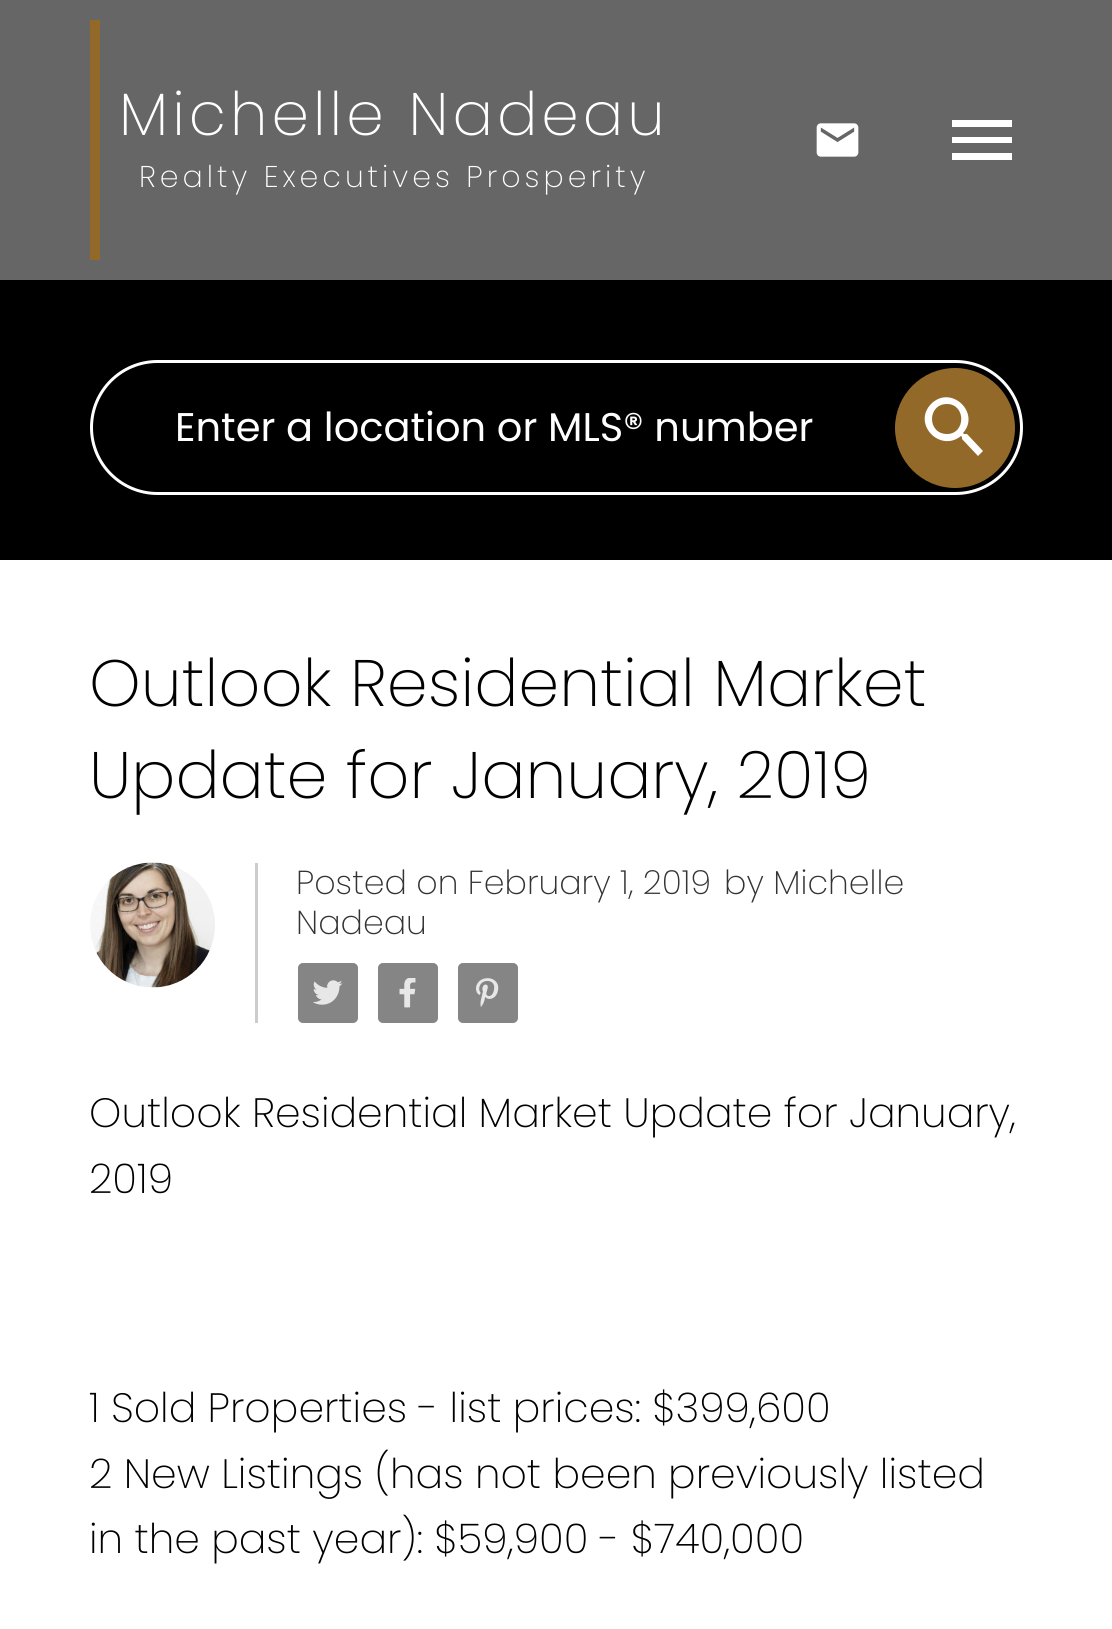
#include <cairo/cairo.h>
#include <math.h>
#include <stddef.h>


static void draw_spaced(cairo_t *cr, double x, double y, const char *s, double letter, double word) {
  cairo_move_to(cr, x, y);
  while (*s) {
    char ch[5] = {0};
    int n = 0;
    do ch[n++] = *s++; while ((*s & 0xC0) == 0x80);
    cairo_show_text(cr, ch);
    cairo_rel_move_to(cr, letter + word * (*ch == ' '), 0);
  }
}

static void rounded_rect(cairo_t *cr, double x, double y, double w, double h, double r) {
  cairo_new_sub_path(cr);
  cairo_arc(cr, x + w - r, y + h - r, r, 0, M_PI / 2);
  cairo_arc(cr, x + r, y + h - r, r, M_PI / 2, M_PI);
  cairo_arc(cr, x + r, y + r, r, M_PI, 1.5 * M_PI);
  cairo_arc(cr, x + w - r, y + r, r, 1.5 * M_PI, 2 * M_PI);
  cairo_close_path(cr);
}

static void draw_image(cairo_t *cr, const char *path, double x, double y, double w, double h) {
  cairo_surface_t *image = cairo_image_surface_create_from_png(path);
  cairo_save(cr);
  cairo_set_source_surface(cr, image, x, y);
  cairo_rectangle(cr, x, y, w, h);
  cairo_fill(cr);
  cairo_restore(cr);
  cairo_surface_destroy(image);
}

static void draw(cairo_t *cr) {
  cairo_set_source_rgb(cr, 1, 1, 1);
  cairo_paint(cr);
  cairo_set_source_rgb(cr, 102 / 255.0, 102 / 255.0, 102 / 255.0);
  cairo_rectangle(cr, 0, 0, 1112, 280);
  cairo_fill(cr);
  cairo_set_source_rgb(cr, 146 / 255.0, 105 / 255.0, 41 / 255.0);
  cairo_rectangle(cr, 90, 20, 10, 240);
  cairo_fill(cr);
  draw_image(cr, "images/1.png", 816, 123, 43, 34);
  cairo_set_source_rgb(cr, 1, 1, 1);
  cairo_new_path(cr);
  cairo_move_to(cr, 952, 160);
  cairo_line_to(cr, 1012, 160);
  cairo_line_to(cr, 1012, 153);
  cairo_line_to(cr, 952, 153);
  cairo_close_path(cr);
  cairo_move_to(cr, 952, 143);
  cairo_line_to(cr, 1012, 143);
  cairo_line_to(cr, 1012, 137);
  cairo_line_to(cr, 952, 137);
  cairo_close_path(cr);
  cairo_move_to(cr, 952, 120);
  cairo_line_to(cr, 952, 127);
  cairo_line_to(cr, 1012, 127);
  cairo_line_to(cr, 1012, 120);
  cairo_close_path(cr);
  cairo_fill(cr);
  cairo_set_source_rgb(cr, 0, 0, 0);
  cairo_rectangle(cr, 0, 280, 1112, 280);
  cairo_fill(cr);
  rounded_rect(cr, 91.5, 361.5, 930, 132, 66);
  cairo_set_source_rgb(cr, 1, 1, 1);
  cairo_set_line_width(cr, 3);
  cairo_stroke(cr);
  cairo_set_source_rgb(cr, 146 / 255.0, 105 / 255.0, 41 / 255.0);
  cairo_arc(cr, 955, 428, 60, 0, 2 * M_PI);
  cairo_fill(cr);
  cairo_set_source_rgb(cr, 1, 1, 1);
  cairo_new_path(cr);
  cairo_move_to(cr, 967, 434);
  cairo_line_to(cr, 964, 434);
  cairo_line_to(cr, 963, 433);
  cairo_curve_to(cr, 981, 413, 951, 384, 931, 404);
  cairo_curve_to(cr, 912, 424, 940, 453, 961, 436);
  cairo_line_to(cr, 962, 437);
  cairo_line_to(cr, 962, 439);
  cairo_line_to(cr, 978, 456);
  cairo_line_to(cr, 983, 451);
  cairo_close_path(cr);
  cairo_move_to(cr, 947, 434);
  cairo_curve_to(cr, 927, 434, 927, 404, 947, 404);
  cairo_curve_to(cr, 966, 404, 966, 434, 947, 434);
  cairo_close_path(cr);
  cairo_fill(cr);
  cairo_set_source_rgb(cr, 204 / 255.0, 204 / 255.0, 204 / 255.0);
  cairo_rectangle(cr, 255, 863, 3, 160);
  cairo_fill(cr);
  draw_image(cr, "images/2.png", 90, 862, 125, 126);
  cairo_set_source_rgb(cr, 133 / 255.0, 133 / 255.0, 133 / 255.0);
  rounded_rect(cr, 298, 963, 60, 60, 5);
  cairo_fill(cr);
  draw_image(cr, "images/3.png", 313, 980, 30, 25);
  rounded_rect(cr, 378, 963, 60, 60, 5);
  cairo_fill(cr);
  draw_image(cr, "images/4.png", 399, 978, 17, 30);
  rounded_rect(cr, 458, 963, 60, 60, 5);
  cairo_fill(cr);
  draw_image(cr, "images/5.png", 476, 978, 23, 29);
  cairo_select_font_face(cr, "Poppins ExtraLight", CAIRO_FONT_SLANT_NORMAL, CAIRO_FONT_WEIGHT_NORMAL);
  cairo_set_font_size(cr, 60);
  cairo_set_source_rgb(cr, 1, 1, 1);
  draw_spaced(cr, 119, 135, "Michelle Nadeau", 4, 0);
  cairo_set_font_size(cr, 30);
  draw_spaced(cr, 139, 187, "Realty Executives Prosperity", 4, 0);
  cairo_select_font_face(cr, "Poppins", CAIRO_FONT_SLANT_NORMAL, CAIRO_FONT_WEIGHT_NORMAL);
  cairo_set_font_size(cr, 40);
  cairo_move_to(cr, 175, 441);
  cairo_show_text(cr, "Enter a location or MLS® number");
  cairo_select_font_face(cr, "Poppins ExtraLight", CAIRO_FONT_SLANT_NORMAL, CAIRO_FONT_WEIGHT_NORMAL);
  cairo_set_font_size(cr, 65.6);
  cairo_set_source_rgb(cr, 0, 0, 0);
  cairo_move_to(cr, 89, 706);
  cairo_show_text(cr, "Outlook Residential Market");
  cairo_move_to(cr, 89, 798);
  cairo_show_text(cr, "Update for January, 2019");
  cairo_set_font_size(cr, 33.25);
  cairo_set_source_rgb(cr, 51 / 255.0, 51 / 255.0, 51 / 255.0);
  cairo_move_to(cr, 296, 894);
  cairo_show_text(cr, "Posted on February 1, 2019");
  cairo_move_to(cr, 724, 894);
  cairo_show_text(cr, "by Michelle");
  cairo_move_to(cr, 296, 934);
  cairo_show_text(cr, "Nadeau");
  cairo_set_font_size(cr, 41);
  cairo_set_source_rgb(cr, 0, 0, 0);
  draw_spaced(cr, 89, 1127, "Outlook Residential Market Update for January,", 0, -0.25);
  cairo_move_to(cr, 89, 1193);
  cairo_show_text(cr, "2019");
  draw_spaced(cr, 89, 1422, "1 Sold Properties - list prices: $399,600", 0, -0.25);
  draw_spaced(cr, 89, 1488, "2 New Listings (has not been previously listed", 0, -0.25);
  draw_spaced(cr, 89, 1553, "in the past year): $59,900 - $740,000", 0, -0.25);
}

int main(void) {
  cairo_surface_t *surface = cairo_image_surface_create(CAIRO_FORMAT_RGB24, 1112, 1629);
  cairo_t *cr = cairo_create(surface);
  cairo_font_options_t *options = cairo_font_options_create();
  cairo_font_options_set_hint_metrics(options, CAIRO_HINT_METRICS_OFF);
  cairo_font_options_set_hint_style(options, CAIRO_HINT_STYLE_NONE);
  cairo_set_font_options(cr, options);
  cairo_set_miter_limit(cr, 4);
  draw(cr);
  cairo_surface_write_to_png(surface, "out.png");
  cairo_font_options_destroy(options);
  cairo_destroy(cr);
  cairo_surface_destroy(surface);
  return 0;
}
